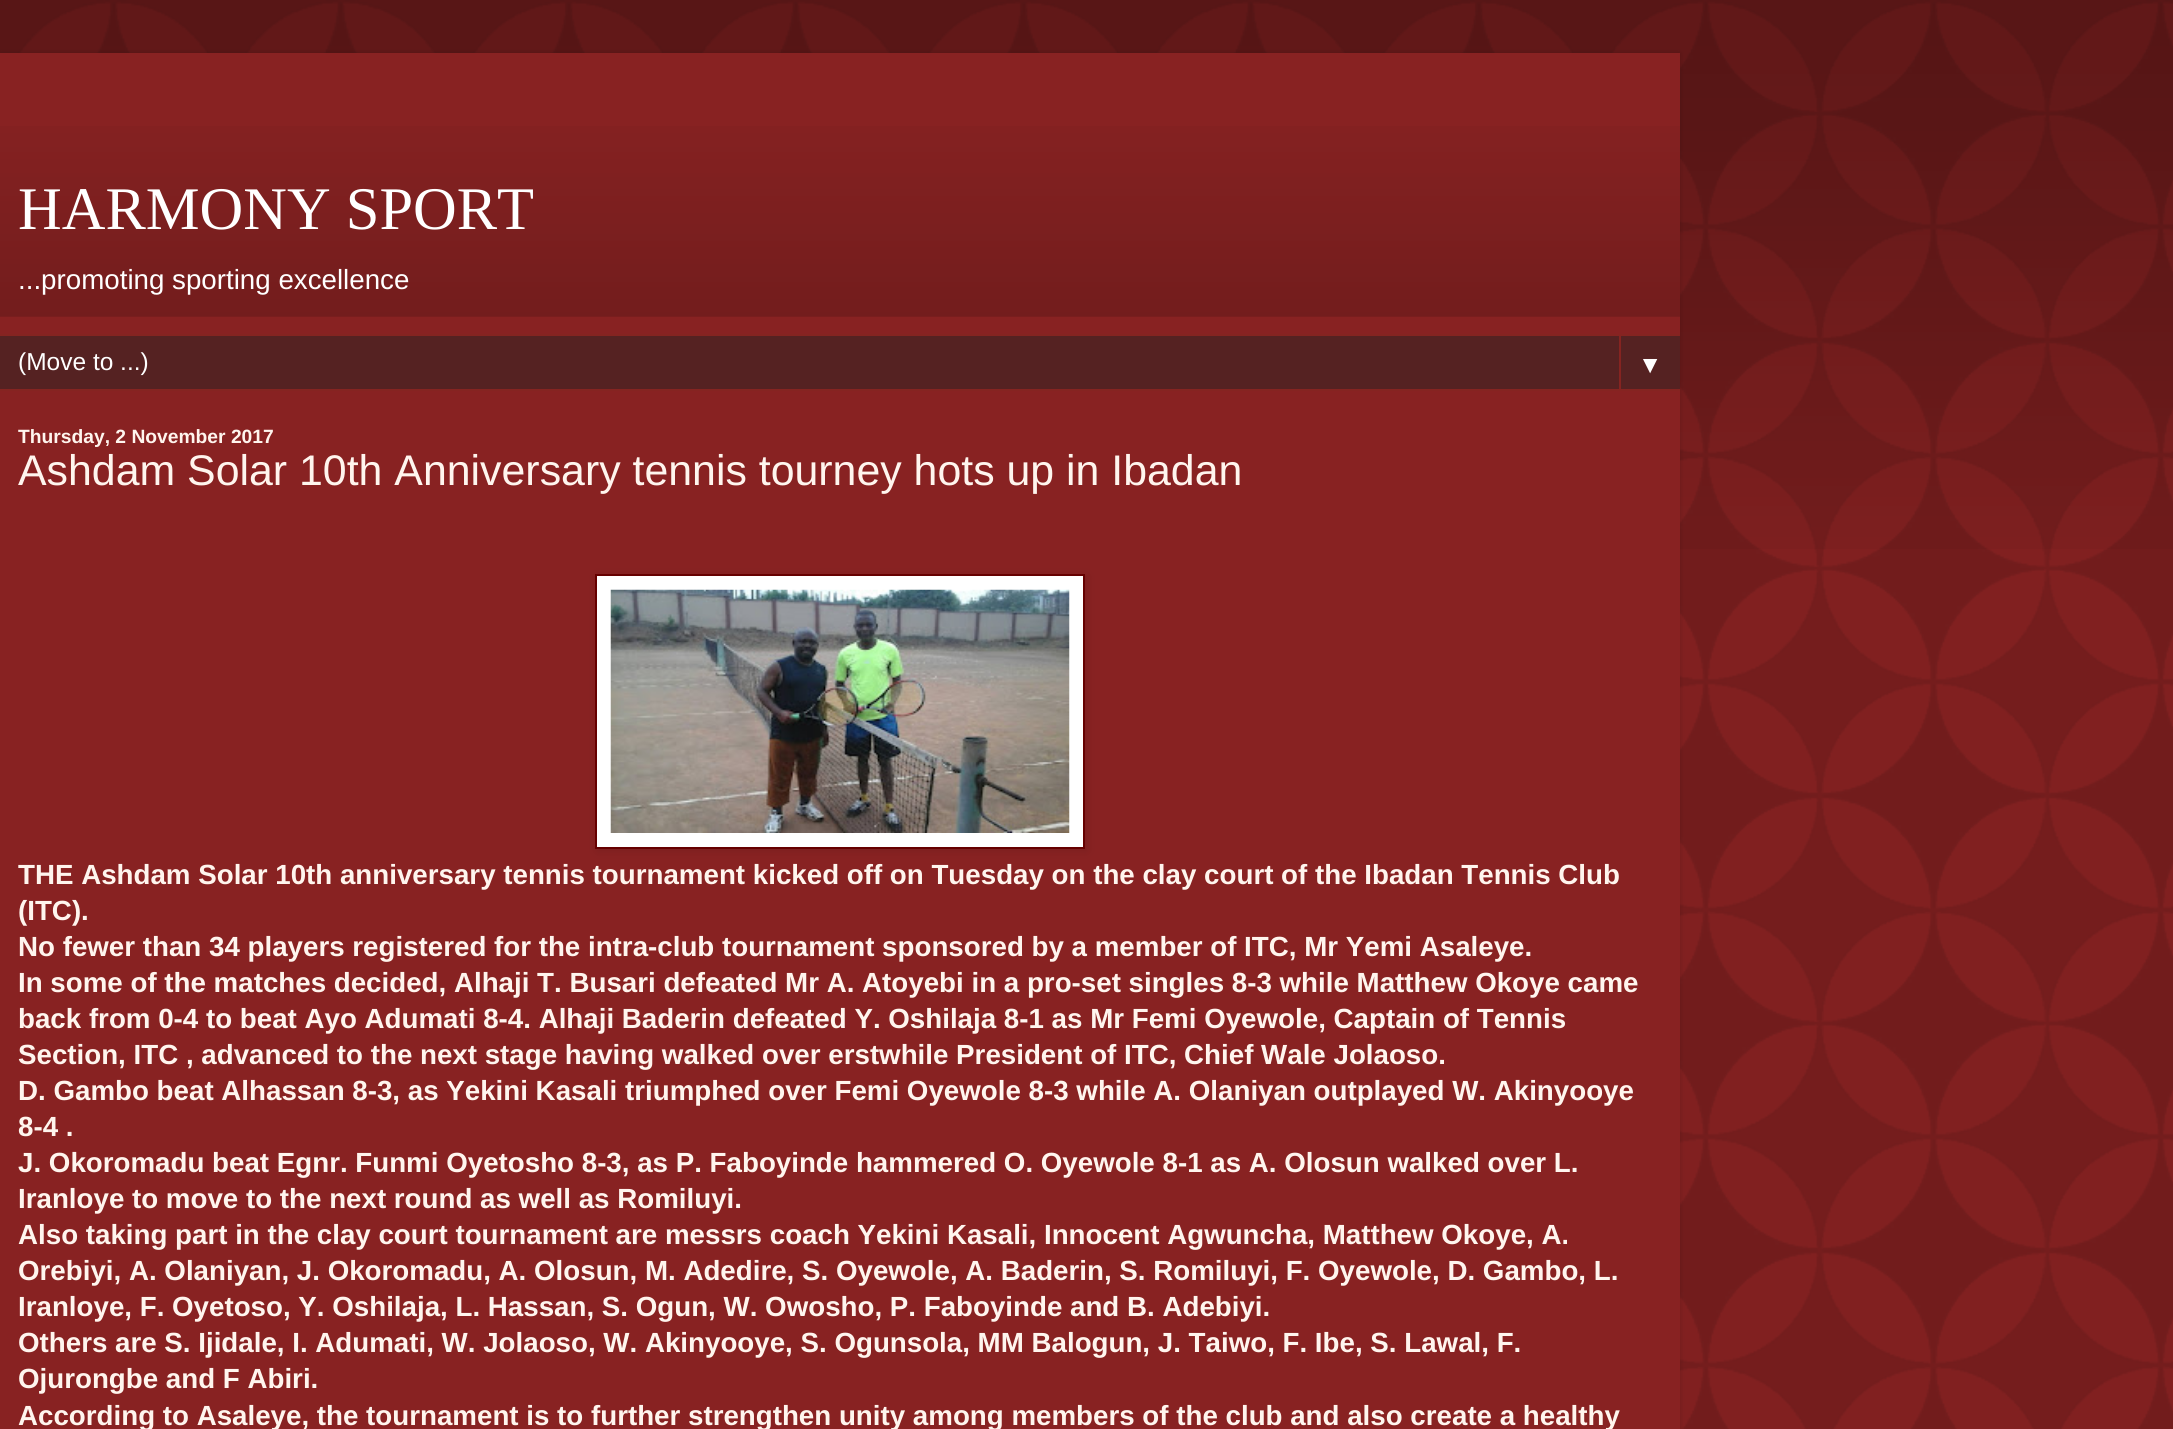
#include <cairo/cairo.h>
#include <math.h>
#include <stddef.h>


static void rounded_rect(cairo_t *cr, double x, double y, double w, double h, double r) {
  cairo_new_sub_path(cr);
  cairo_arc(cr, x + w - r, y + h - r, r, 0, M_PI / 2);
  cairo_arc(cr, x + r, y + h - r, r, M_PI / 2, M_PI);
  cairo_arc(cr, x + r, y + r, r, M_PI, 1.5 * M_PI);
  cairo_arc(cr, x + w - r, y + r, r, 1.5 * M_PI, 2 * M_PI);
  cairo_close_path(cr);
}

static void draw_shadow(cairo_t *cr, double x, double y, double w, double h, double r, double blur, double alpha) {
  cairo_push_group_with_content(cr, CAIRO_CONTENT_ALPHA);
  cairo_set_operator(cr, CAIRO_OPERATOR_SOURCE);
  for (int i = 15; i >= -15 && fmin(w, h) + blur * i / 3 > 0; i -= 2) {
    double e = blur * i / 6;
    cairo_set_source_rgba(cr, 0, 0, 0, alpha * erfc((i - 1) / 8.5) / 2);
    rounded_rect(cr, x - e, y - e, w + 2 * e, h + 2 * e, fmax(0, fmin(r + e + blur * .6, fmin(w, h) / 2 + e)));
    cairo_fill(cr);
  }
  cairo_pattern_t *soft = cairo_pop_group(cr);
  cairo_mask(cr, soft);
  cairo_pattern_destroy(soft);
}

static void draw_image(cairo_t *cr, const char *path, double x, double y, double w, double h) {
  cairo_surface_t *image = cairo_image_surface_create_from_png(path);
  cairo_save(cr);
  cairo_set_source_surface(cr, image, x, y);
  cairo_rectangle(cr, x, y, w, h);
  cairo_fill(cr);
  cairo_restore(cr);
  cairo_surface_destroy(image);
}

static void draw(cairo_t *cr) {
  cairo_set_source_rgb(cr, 136 / 255.0, 34 / 255.0, 34 / 255.0);
  cairo_paint(cr);
  draw_image(cr, "images/1.png", 0, 0, 2173, 1429);
  draw_image(cr, "images/2.png", 0, 0, 2173, 549);
  cairo_set_source_rgb(cr, 0, 0, 0);
  draw_shadow(cr, 0, 53, 1680, 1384, 0, 2.5, 0.15);
  cairo_set_source_rgb(cr, 136 / 255.0, 34 / 255.0, 34 / 255.0);
  cairo_rectangle(cr, 0, 53, 1680, 1376);
  cairo_fill(cr);
  draw_image(cr, "images/3.png", 0, 126, 1680, 191);
  cairo_set_source_rgb(cr, 85 / 255.0, 34 / 255.0, 34 / 255.0);
  cairo_rectangle(cr, 0, 336, 1680, 53);
  cairo_fill(cr);
  cairo_set_source_rgb(cr, 133 / 255.0, 36 / 255.0, 33 / 255.0);
  cairo_rectangle(cr, 0, 334, 1680, 2);
  cairo_fill(cr);
  cairo_rectangle(cr, 0, 389, 1680, 2);
  cairo_fill(cr);
  cairo_rectangle(cr, 1619, 334, 2, 56);
  cairo_fill(cr);
  cairo_set_source_rgb(cr, 0, 0, 0);
  draw_shadow(cr, 597, 576, 490, 275, 0, 4.5, 0.1);
  cairo_set_source_rgb(cr, 1, 1, 1);
  cairo_rectangle(cr, 596, 575, 488, 273);
  cairo_fill_preserve(cr);
  cairo_set_source_rgb(cr, 102 / 255.0, 0, 0);
  cairo_stroke(cr);
  draw_image(cr, "images/4.png", 610, 589, 460, 244);
  cairo_select_font_face(cr, "Liberation Serif", CAIRO_FONT_SLANT_NORMAL, CAIRO_FONT_WEIGHT_NORMAL);
  cairo_set_font_size(cr, 60.5);
  cairo_set_source_rgb(cr, 1, 1, 1);
  cairo_move_to(cr, 18, 229);
  cairo_show_text(cr, "HARMONY SPORT");
  cairo_select_font_face(cr, "Liberation Sans", CAIRO_FONT_SLANT_NORMAL, CAIRO_FONT_WEIGHT_NORMAL);
  cairo_set_font_size(cr, 27.72);
  cairo_move_to(cr, 18, 289);
  cairo_show_text(cr, "...promoting sporting excellence");
  cairo_set_font_size(cr, 24.5);
  cairo_move_to(cr, 18, 370);
  cairo_show_text(cr, "(Move to ...)");
  cairo_move_to(cr, 1638, 373);
  cairo_show_text(cr, "▼");
  cairo_select_font_face(cr, "Liberation Sans", CAIRO_FONT_SLANT_NORMAL, CAIRO_FONT_WEIGHT_BOLD);
  cairo_set_font_size(cr, 19.25);
  cairo_set_source_rgb(cr, 1, 245 / 255.0, 238 / 255.0);
  cairo_move_to(cr, 18, 443);
  cairo_show_text(cr, "Thursday, 2 November 2017");
  cairo_select_font_face(cr, "Liberation Sans", CAIRO_FONT_SLANT_NORMAL, CAIRO_FONT_WEIGHT_NORMAL);
  cairo_set_font_size(cr, 42.85);
  cairo_move_to(cr, 18, 485);
  cairo_show_text(cr, "Ashdam Solar 10th Anniversary tennis tourney hots up in Ibadan");
  cairo_select_font_face(cr, "Liberation Sans", CAIRO_FONT_SLANT_NORMAL, CAIRO_FONT_WEIGHT_BOLD);
  cairo_set_font_size(cr, 27.72);
  cairo_move_to(cr, 18, 884);
  cairo_show_text(cr, "THE Ashdam Solar 10th anniversary tennis tournament kicked off on Tuesday on the clay court of the Ibadan Tennis Club");
  cairo_move_to(cr, 18, 920);
  cairo_show_text(cr, "(ITC).");
  cairo_move_to(cr, 18, 956);
  cairo_show_text(cr, "No fewer than 34 players registered for the intra-club tournament sponsored by a member of ITC, Mr Yemi Asaleye.");
  cairo_move_to(cr, 18, 992);
  cairo_show_text(cr, "In some of the matches decided, Alhaji T. Busari defeated Mr A. Atoyebi in a pro-set singles 8-3 while Matthew Okoye came");
  cairo_move_to(cr, 18, 1028);
  cairo_show_text(cr, "back from 0-4 to beat Ayo Adumati 8-4. Alhaji Baderin defeated Y. Oshilaja 8-1 as Mr Femi Oyewole, Captain of Tennis");
  cairo_move_to(cr, 18, 1064);
  cairo_show_text(cr, "Section, ITC , advanced to the next stage having walked over erstwhile President of ITC, Chief Wale Jolaoso.");
  cairo_move_to(cr, 18, 1100);
  cairo_show_text(cr, "D. Gambo beat Alhassan 8-3, as Yekini Kasali triumphed over Femi Oyewole 8-3 while A. Olaniyan outplayed W. Akinyooye");
  cairo_move_to(cr, 18, 1136);
  cairo_show_text(cr, "8-4 .");
  cairo_move_to(cr, 18, 1172);
  cairo_show_text(cr, "J. Okoromadu beat Egnr. Funmi Oyetosho 8-3, as P. Faboyinde hammered O. Oyewole 8-1 as A. Olosun walked over L.");
  cairo_move_to(cr, 18, 1208);
  cairo_show_text(cr, "Iranloye to move to the next round as well as Romiluyi.");
  cairo_move_to(cr, 18, 1244);
  cairo_show_text(cr, "Also taking part in the clay court tournament are messrs coach Yekini Kasali, Innocent Agwuncha, Matthew Okoye, A.");
  cairo_move_to(cr, 18, 1280);
  cairo_show_text(cr, "Orebiyi, A. Olaniyan, J. Okoromadu, A. Olosun, M. Adedire, S. Oyewole, A. Baderin, S. Romiluyi, F. Oyewole, D. Gambo, L.");
  cairo_move_to(cr, 18, 1316);
  cairo_show_text(cr, "Iranloye, F. Oyetoso, Y. Oshilaja, L. Hassan, S. Ogun, W. Owosho, P. Faboyinde and B. Adebiyi.");
  cairo_move_to(cr, 18, 1352);
  cairo_show_text(cr, "Others are S. Ijidale, I. Adumati, W. Jolaoso, W. Akinyooye, S. Ogunsola, MM Balogun, J. Taiwo, F. Ibe, S. Lawal, F.");
  cairo_move_to(cr, 18, 1388);
  cairo_show_text(cr, "Ojurongbe and F Abiri.");
  cairo_move_to(cr, 18, 1425);
  cairo_show_text(cr, "According to Asaleye, the tournament is to further strengthen unity among members of the club and also create a healthy");
}

int main(void) {
  cairo_surface_t *surface = cairo_image_surface_create(CAIRO_FORMAT_RGB24, 2173, 1429);
  cairo_t *cr = cairo_create(surface);
  cairo_font_options_t *options = cairo_font_options_create();
  cairo_font_options_set_hint_metrics(options, CAIRO_HINT_METRICS_OFF);
  cairo_font_options_set_hint_style(options, CAIRO_HINT_STYLE_NONE);
  cairo_set_font_options(cr, options);
  cairo_set_miter_limit(cr, 4);
  draw(cr);
  cairo_surface_write_to_png(surface, "out.png");
  cairo_font_options_destroy(options);
  cairo_destroy(cr);
  cairo_surface_destroy(surface);
  return 0;
}
